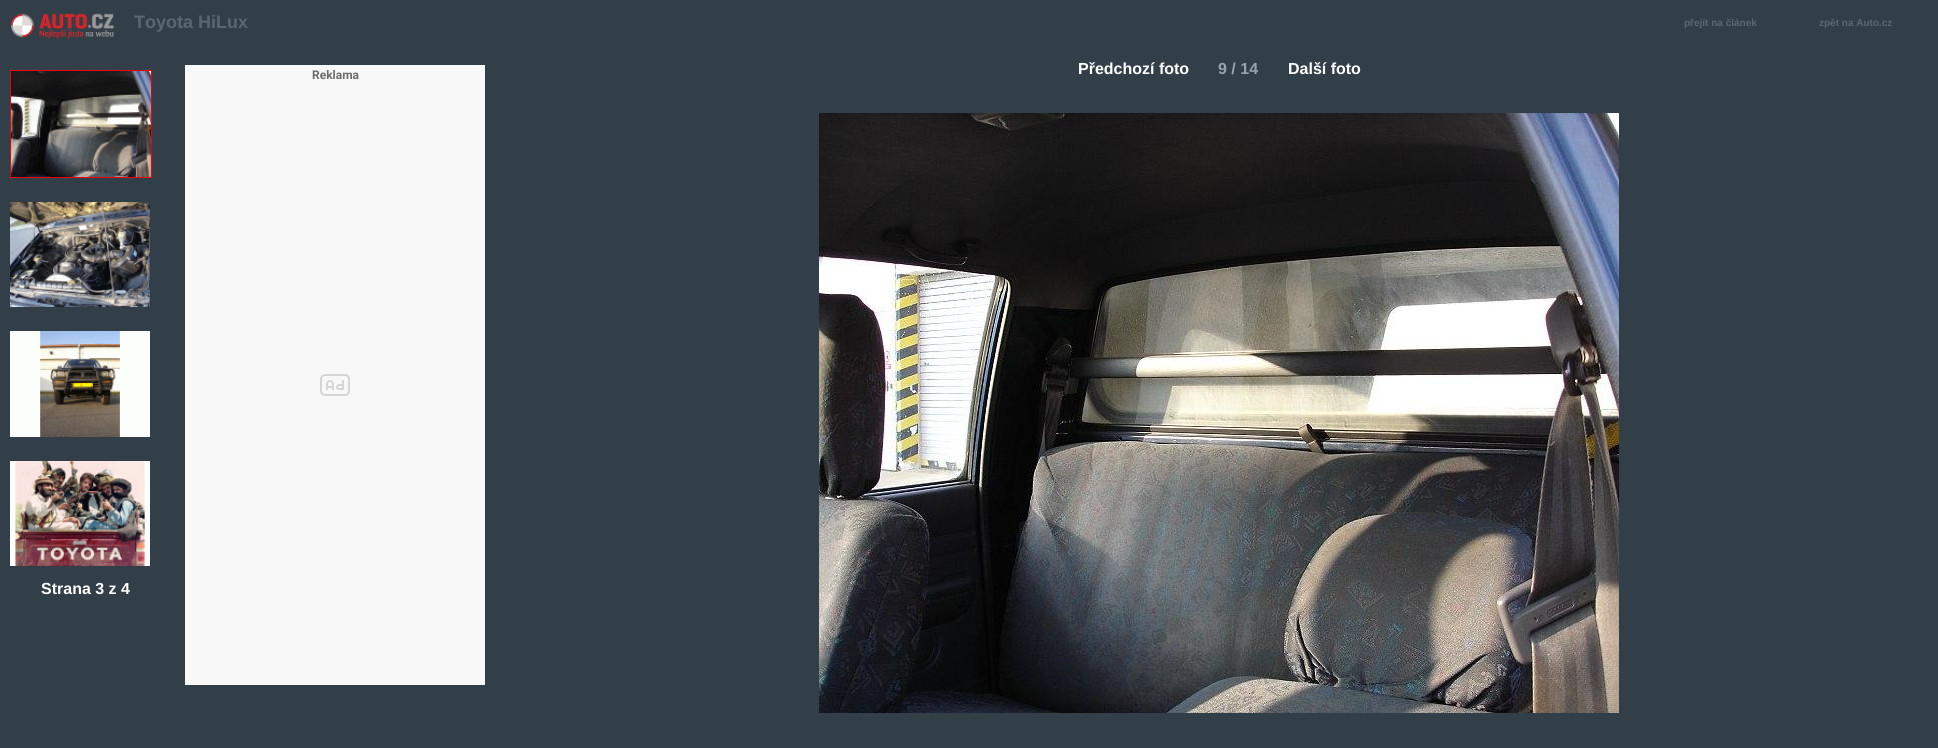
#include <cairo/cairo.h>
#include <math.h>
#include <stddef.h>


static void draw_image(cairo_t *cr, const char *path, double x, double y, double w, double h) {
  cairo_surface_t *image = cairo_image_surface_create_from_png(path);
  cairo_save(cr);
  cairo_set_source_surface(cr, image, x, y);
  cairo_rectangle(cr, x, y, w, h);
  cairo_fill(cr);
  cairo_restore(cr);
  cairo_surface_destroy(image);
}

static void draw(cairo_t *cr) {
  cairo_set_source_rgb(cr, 51 / 255.0, 63 / 255.0, 72 / 255.0);
  cairo_paint(cr);
  draw_image(cr, "images/1.png", 11, 13, 103, 26);
  cairo_set_source_rgb(cr, 248 / 255.0, 248 / 255.0, 248 / 255.0);
  cairo_rectangle(cr, 185, 65, 300, 620);
  cairo_fill(cr);
  draw_image(cr, "images/2.png", 320, 374, 30, 22);
  draw_image(cr, "images/3.png", 819, 113, 800, 600);
  cairo_rectangle(cr, 10.5, 70.5, 141, 107);
  cairo_set_source_rgb(cr, 242 / 255.0, 0, 0);
  cairo_set_line_width(cr, 1);
  cairo_stroke(cr);
  draw_image(cr, "images/4.png", 11, 71, 140, 106);
  draw_image(cr, "images/5.png", 10, 202, 140, 105);
  draw_image(cr, "images/6.png", 10, 331, 140, 106);
  draw_image(cr, "images/7.png", 10, 461, 140, 105);
  cairo_select_font_face(cr, "Liberation Sans", CAIRO_FONT_SLANT_NORMAL, CAIRO_FONT_WEIGHT_BOLD);
  cairo_set_font_size(cr, 18);
  cairo_set_source_rgb(cr, 91 / 255.0, 103 / 255.0, 112 / 255.0);
  cairo_move_to(cr, 134, 28);
  cairo_show_text(cr, "Toyota HiLux");
  cairo_set_font_size(cr, 10);
  cairo_move_to(cr, 1684, 26);
  cairo_show_text(cr, "přejít na článek");
  cairo_move_to(cr, 1819, 26);
  cairo_show_text(cr, "zpět na Auto.cz");
  cairo_select_font_face(cr, "Roboto", CAIRO_FONT_SLANT_NORMAL, CAIRO_FONT_WEIGHT_BOLD);
  cairo_set_font_size(cr, 12);
  cairo_set_source_rgb(cr, 107 / 255.0, 107 / 255.0, 107 / 255.0);
  cairo_move_to(cr, 312, 79);
  cairo_show_text(cr, "Reklama");
  cairo_select_font_face(cr, "Liberation Sans", CAIRO_FONT_SLANT_NORMAL, CAIRO_FONT_WEIGHT_BOLD);
  cairo_set_font_size(cr, 16);
  cairo_set_source_rgb(cr, 1, 1, 1);
  cairo_move_to(cr, 1078, 74);
  cairo_show_text(cr, "Předchozí foto");
  cairo_set_source_rgb(cr, 153 / 255.0, 164 / 255.0, 170 / 255.0);
  cairo_move_to(cr, 1218, 74);
  cairo_show_text(cr, "9 / 14");
  cairo_set_source_rgb(cr, 1, 1, 1);
  cairo_move_to(cr, 1288, 74);
  cairo_show_text(cr, "Další foto");
  cairo_move_to(cr, 41, 594);
  cairo_show_text(cr, "Strana 3 z 4");
}

int main(void) {
  cairo_surface_t *surface = cairo_image_surface_create(CAIRO_FORMAT_RGB24, 1938, 748);
  cairo_t *cr = cairo_create(surface);
  cairo_font_options_t *options = cairo_font_options_create();
  cairo_font_options_set_hint_metrics(options, CAIRO_HINT_METRICS_OFF);
  cairo_font_options_set_hint_style(options, CAIRO_HINT_STYLE_NONE);
  cairo_set_font_options(cr, options);
  cairo_set_miter_limit(cr, 4);
  draw(cr);
  cairo_surface_write_to_png(surface, "out.png");
  cairo_font_options_destroy(options);
  cairo_destroy(cr);
  cairo_surface_destroy(surface);
  return 0;
}
